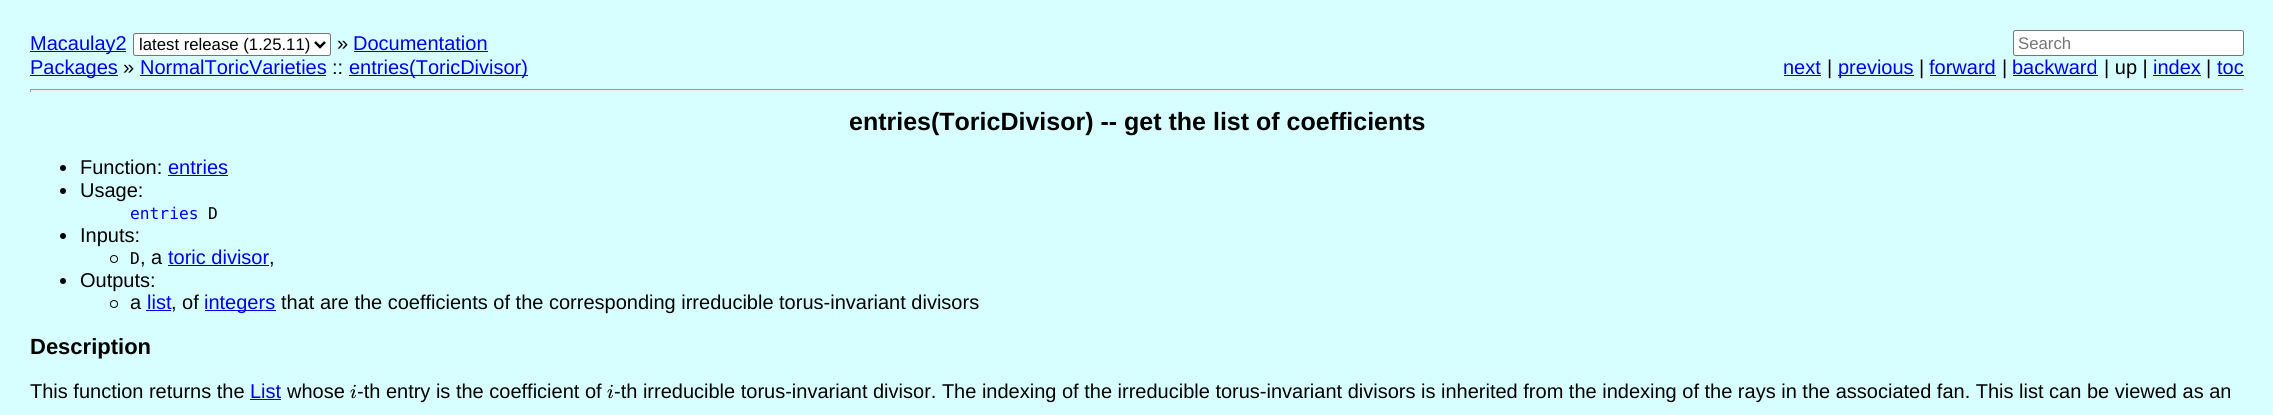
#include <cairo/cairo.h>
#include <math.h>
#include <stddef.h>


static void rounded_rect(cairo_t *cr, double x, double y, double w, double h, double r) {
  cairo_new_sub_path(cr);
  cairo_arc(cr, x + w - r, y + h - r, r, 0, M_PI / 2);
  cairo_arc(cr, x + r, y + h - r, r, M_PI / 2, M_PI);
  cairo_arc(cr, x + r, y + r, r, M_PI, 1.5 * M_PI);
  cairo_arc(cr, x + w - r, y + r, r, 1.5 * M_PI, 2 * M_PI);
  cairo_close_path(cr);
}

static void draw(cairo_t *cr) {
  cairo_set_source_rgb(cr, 216 / 255.0, 1, 1);
  cairo_paint(cr);
  cairo_set_source_rgb(cr, 0, 0, 238 / 255.0);
  cairo_rectangle(cr, 30, 51, 96, 1);
  cairo_fill(cr);
  cairo_set_source_rgb(cr, 1, 1, 1);
  rounded_rect(cr, 133.5, 33.5, 197, 22, 2);
  cairo_fill_preserve(cr);
  cairo_set_source_rgb(cr, 118 / 255.0, 118 / 255.0, 118 / 255.0);
  cairo_set_line_width(cr, 1);
  cairo_stroke(cr);
  cairo_new_path(cr);
  cairo_move_to(cr, 315, 42);
  cairo_line_to(cr, 320, 47);
  cairo_line_to(cr, 325, 42);
  cairo_set_source_rgb(cr, 0, 0, 0);
  cairo_set_line_width(cr, 2.5);
  cairo_stroke(cr);
  cairo_set_source_rgb(cr, 0, 0, 238 / 255.0);
  cairo_rectangle(cr, 354, 51, 134, 1);
  cairo_fill(cr);
  cairo_rectangle(cr, 30, 75, 88, 1);
  cairo_fill(cr);
  cairo_rectangle(cr, 140, 75, 186, 1);
  cairo_fill(cr);
  cairo_rectangle(cr, 349, 75, 179, 1);
  cairo_fill(cr);
  cairo_set_source_rgb(cr, 1, 1, 1);
  rounded_rect(cr, 2013.5, 30.5, 230, 25, 2);
  cairo_fill_preserve(cr);
  cairo_set_source_rgb(cr, 118 / 255.0, 118 / 255.0, 118 / 255.0);
  cairo_set_line_width(cr, 1);
  cairo_stroke(cr);
  cairo_set_source_rgb(cr, 0, 0, 238 / 255.0);
  cairo_rectangle(cr, 1784, 75, 37, 1);
  cairo_fill(cr);
  cairo_rectangle(cr, 1838, 75, 76, 1);
  cairo_fill(cr);
  cairo_rectangle(cr, 1930, 75, 66, 1);
  cairo_fill(cr);
  cairo_rectangle(cr, 2013, 75, 85, 1);
  cairo_fill(cr);
  cairo_rectangle(cr, 2153, 75, 48, 1);
  cairo_fill(cr);
  cairo_rectangle(cr, 2218, 75, 26, 1);
  cairo_fill(cr);
  cairo_set_source_rgb(cr, 159 / 255.0, 159 / 255.0, 159 / 255.0);
  cairo_rectangle(cr, 30, 89, 2214, 1);
  cairo_fill(cr);
  cairo_set_source_rgb(cr, 238 / 255.0, 238 / 255.0, 238 / 255.0);
  cairo_rectangle(cr, 2243, 89, 1, 3);
  cairo_fill(cr);
  cairo_rectangle(cr, 30, 90, 2214, 1);
  cairo_fill(cr);
  cairo_set_source_rgb(cr, 159 / 255.0, 159 / 255.0, 159 / 255.0);
  cairo_rectangle(cr, 30, 89, 1, 3);
  cairo_fill(cr);
  cairo_set_source_rgb(cr, 0, 0, 0);
  cairo_arc(cr, 63, 168, 3, 0, 2 * M_PI);
  cairo_fill(cr);
  cairo_set_source_rgb(cr, 0, 0, 238 / 255.0);
  cairo_rectangle(cr, 168, 175, 60, 1);
  cairo_fill(cr);
  cairo_set_source_rgb(cr, 0, 0, 0);
  cairo_arc(cr, 63, 191, 3, 0, 2 * M_PI);
  cairo_fill(cr);
  cairo_arc(cr, 63, 236, 3, 0, 2 * M_PI);
  cairo_fill(cr);
  cairo_arc(cr, 114, 259, 3.5, 0, 2 * M_PI);
  cairo_stroke(cr);
  cairo_set_source_rgb(cr, 0, 0, 238 / 255.0);
  cairo_rectangle(cr, 168, 265, 101, 1);
  cairo_fill(cr);
  cairo_set_source_rgb(cr, 0, 0, 0);
  cairo_arc(cr, 63, 281, 3, 0, 2 * M_PI);
  cairo_fill(cr);
  cairo_arc(cr, 114, 304, 3.5, 0, 2 * M_PI);
  cairo_stroke(cr);
  cairo_set_source_rgb(cr, 0, 0, 238 / 255.0);
  cairo_rectangle(cr, 146, 310, 25, 1);
  cairo_fill(cr);
  cairo_rectangle(cr, 205, 310, 71, 1);
  cairo_fill(cr);
  cairo_rectangle(cr, 250, 399, 31, 1);
  cairo_fill(cr);
  cairo_select_font_face(cr, "Liberation Sans", CAIRO_FONT_SLANT_NORMAL, CAIRO_FONT_WEIGHT_NORMAL);
  cairo_set_font_size(cr, 20);
  cairo_move_to(cr, 30, 50);
  cairo_show_text(cr, "Macaulay2");
  cairo_set_font_size(cr, 16.75);
  cairo_set_source_rgb(cr, 0, 0, 0);
  cairo_move_to(cr, 139, 50);
  cairo_show_text(cr, "latest release (1.25.11)");
  cairo_set_font_size(cr, 20);
  cairo_move_to(cr, 337, 50);
  cairo_show_text(cr, "»");
  cairo_set_source_rgb(cr, 0, 0, 238 / 255.0);
  cairo_move_to(cr, 353, 50);
  cairo_show_text(cr, "Documentation");
  cairo_move_to(cr, 30, 74);
  cairo_show_text(cr, "Packages");
  cairo_set_source_rgb(cr, 0, 0, 0);
  cairo_move_to(cr, 123, 74);
  cairo_show_text(cr, "»");
  cairo_set_source_rgb(cr, 0, 0, 238 / 255.0);
  cairo_move_to(cr, 140, 74);
  cairo_show_text(cr, "NormalToricVarieties");
  cairo_set_source_rgb(cr, 0, 0, 0);
  cairo_move_to(cr, 332, 74);
  cairo_show_text(cr, "::");
  cairo_set_source_rgb(cr, 0, 0, 238 / 255.0);
  cairo_move_to(cr, 349, 74);
  cairo_show_text(cr, "entries(ToricDivisor)");
  cairo_set_font_size(cr, 16.75);
  cairo_set_source_rgb(cr, 117 / 255.0, 117 / 255.0, 117 / 255.0);
  cairo_move_to(cr, 2018, 49);
  cairo_show_text(cr, "Search");
  cairo_set_font_size(cr, 20);
  cairo_set_source_rgb(cr, 0, 0, 238 / 255.0);
  cairo_move_to(cr, 1783, 74);
  cairo_show_text(cr, "next");
  cairo_set_source_rgb(cr, 0, 0, 0);
  cairo_move_to(cr, 1827, 74);
  cairo_show_text(cr, "|");
  cairo_set_source_rgb(cr, 0, 0, 238 / 255.0);
  cairo_move_to(cr, 1838, 74);
  cairo_show_text(cr, "previous");
  cairo_set_source_rgb(cr, 0, 0, 0);
  cairo_move_to(cr, 1919, 74);
  cairo_show_text(cr, "|");
  cairo_set_source_rgb(cr, 0, 0, 238 / 255.0);
  cairo_move_to(cr, 1929, 74);
  cairo_show_text(cr, "forward");
  cairo_set_source_rgb(cr, 0, 0, 0);
  cairo_move_to(cr, 2002, 74);
  cairo_show_text(cr, "|");
  cairo_set_source_rgb(cr, 0, 0, 238 / 255.0);
  cairo_move_to(cr, 2012, 74);
  cairo_show_text(cr, "backward");
  cairo_set_source_rgb(cr, 0, 0, 0);
  cairo_move_to(cr, 2104, 74);
  cairo_show_text(cr, "| up |");
  cairo_set_source_rgb(cr, 0, 0, 238 / 255.0);
  cairo_move_to(cr, 2153, 74);
  cairo_show_text(cr, "index");
  cairo_set_source_rgb(cr, 0, 0, 0);
  cairo_move_to(cr, 2206, 74);
  cairo_show_text(cr, "|");
  cairo_set_source_rgb(cr, 0, 0, 238 / 255.0);
  cairo_move_to(cr, 2217, 74);
  cairo_show_text(cr, "toc");
  cairo_select_font_face(cr, "Liberation Sans", CAIRO_FONT_SLANT_NORMAL, CAIRO_FONT_WEIGHT_BOLD);
  cairo_set_font_size(cr, 25);
  cairo_set_source_rgb(cr, 0, 0, 0);
  cairo_move_to(cr, 849, 130);
  cairo_show_text(cr, "entries(ToricDivisor) -- get the list of coefficients");
  cairo_select_font_face(cr, "Liberation Sans", CAIRO_FONT_SLANT_NORMAL, CAIRO_FONT_WEIGHT_NORMAL);
  cairo_set_font_size(cr, 20);
  cairo_move_to(cr, 80, 174);
  cairo_show_text(cr, "Function:");
  cairo_set_source_rgb(cr, 0, 0, 238 / 255.0);
  cairo_move_to(cr, 168, 174);
  cairo_show_text(cr, "entries");
  cairo_set_source_rgb(cr, 0, 0, 0);
  cairo_move_to(cr, 80, 197);
  cairo_show_text(cr, "Usage:");
  cairo_select_font_face(cr, "DejaVu Sans Mono", CAIRO_FONT_SLANT_NORMAL, CAIRO_FONT_WEIGHT_NORMAL);
  cairo_set_font_size(cr, 16.25);
  cairo_set_source_rgb(cr, 0, 0, 1);
  cairo_move_to(cr, 130, 219);
  cairo_show_text(cr, "entries");
  cairo_set_source_rgb(cr, 0, 0, 0);
  cairo_move_to(cr, 208, 219);
  cairo_show_text(cr, "D");
  cairo_select_font_face(cr, "Liberation Sans", CAIRO_FONT_SLANT_NORMAL, CAIRO_FONT_WEIGHT_NORMAL);
  cairo_set_font_size(cr, 20);
  cairo_move_to(cr, 80, 242);
  cairo_show_text(cr, "Inputs:");
  cairo_select_font_face(cr, "DejaVu Sans Mono", CAIRO_FONT_SLANT_NORMAL, CAIRO_FONT_WEIGHT_NORMAL);
  cairo_set_font_size(cr, 16.25);
  cairo_move_to(cr, 130, 264);
  cairo_show_text(cr, "D");
  cairo_select_font_face(cr, "Liberation Sans", CAIRO_FONT_SLANT_NORMAL, CAIRO_FONT_WEIGHT_NORMAL);
  cairo_set_font_size(cr, 20);
  cairo_move_to(cr, 140, 264);
  cairo_show_text(cr, ", a");
  cairo_set_source_rgb(cr, 0, 0, 238 / 255.0);
  cairo_move_to(cr, 168, 264);
  cairo_show_text(cr, "toric divisor");
  cairo_set_source_rgb(cr, 0, 0, 0);
  cairo_move_to(cr, 269, 264);
  cairo_show_text(cr, ",");
  cairo_move_to(cr, 80, 287);
  cairo_show_text(cr, "Outputs:");
  cairo_move_to(cr, 130, 309);
  cairo_show_text(cr, "a");
  cairo_set_source_rgb(cr, 0, 0, 238 / 255.0);
  cairo_move_to(cr, 147, 309);
  cairo_show_text(cr, "list");
  cairo_set_source_rgb(cr, 0, 0, 0);
  cairo_move_to(cr, 171, 309);
  cairo_show_text(cr, ", of");
  cairo_set_source_rgb(cr, 0, 0, 238 / 255.0);
  cairo_move_to(cr, 204, 309);
  cairo_show_text(cr, "integers");
  cairo_set_source_rgb(cr, 0, 0, 0);
  cairo_move_to(cr, 281, 309);
  cairo_show_text(cr, "that are the coefficients of the corresponding irreducible torus-invariant divisors");
  cairo_select_font_face(cr, "Liberation Sans", CAIRO_FONT_SLANT_NORMAL, CAIRO_FONT_WEIGHT_BOLD);
  cairo_set_font_size(cr, 22);
  cairo_move_to(cr, 30, 354);
  cairo_show_text(cr, "Description");
  cairo_select_font_face(cr, "Liberation Sans", CAIRO_FONT_SLANT_NORMAL, CAIRO_FONT_WEIGHT_NORMAL);
  cairo_set_font_size(cr, 20);
  cairo_move_to(cr, 30, 398);
  cairo_show_text(cr, "This function returns the");
  cairo_set_source_rgb(cr, 0, 0, 238 / 255.0);
  cairo_move_to(cr, 250, 398);
  cairo_show_text(cr, "List");
  cairo_set_source_rgb(cr, 0, 0, 0);
  cairo_move_to(cr, 287, 398);
  cairo_show_text(cr, "whose");
  cairo_select_font_face(cr, "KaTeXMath", CAIRO_FONT_SLANT_ITALIC, CAIRO_FONT_WEIGHT_NORMAL);
  cairo_move_to(cr, 350, 398);
  cairo_show_text(cr, "i");
  cairo_select_font_face(cr, "Liberation Sans", CAIRO_FONT_SLANT_NORMAL, CAIRO_FONT_WEIGHT_NORMAL);
  cairo_move_to(cr, 357, 398);
  cairo_show_text(cr, "-th entry is the coefficient of");
  cairo_select_font_face(cr, "KaTeXMath", CAIRO_FONT_SLANT_ITALIC, CAIRO_FONT_WEIGHT_NORMAL);
  cairo_move_to(cr, 607, 398);
  cairo_show_text(cr, "i");
  cairo_select_font_face(cr, "Liberation Sans", CAIRO_FONT_SLANT_NORMAL, CAIRO_FONT_WEIGHT_NORMAL);
  cairo_move_to(cr, 614, 398);
  cairo_show_text(cr, "-th irreducible torus-invariant divisor. The indexing of the irreducible torus-invariant divisors is inherited from the indexing of the rays in the associated fan. This list can be viewed as an");
}

int main(void) {
  cairo_surface_t *surface = cairo_image_surface_create(CAIRO_FORMAT_RGB24, 2273, 415);
  cairo_t *cr = cairo_create(surface);
  cairo_font_options_t *options = cairo_font_options_create();
  cairo_font_options_set_hint_metrics(options, CAIRO_HINT_METRICS_OFF);
  cairo_font_options_set_hint_style(options, CAIRO_HINT_STYLE_NONE);
  cairo_set_font_options(cr, options);
  cairo_set_miter_limit(cr, 4);
  draw(cr);
  cairo_surface_write_to_png(surface, "out.png");
  cairo_font_options_destroy(options);
  cairo_destroy(cr);
  cairo_surface_destroy(surface);
  return 0;
}
